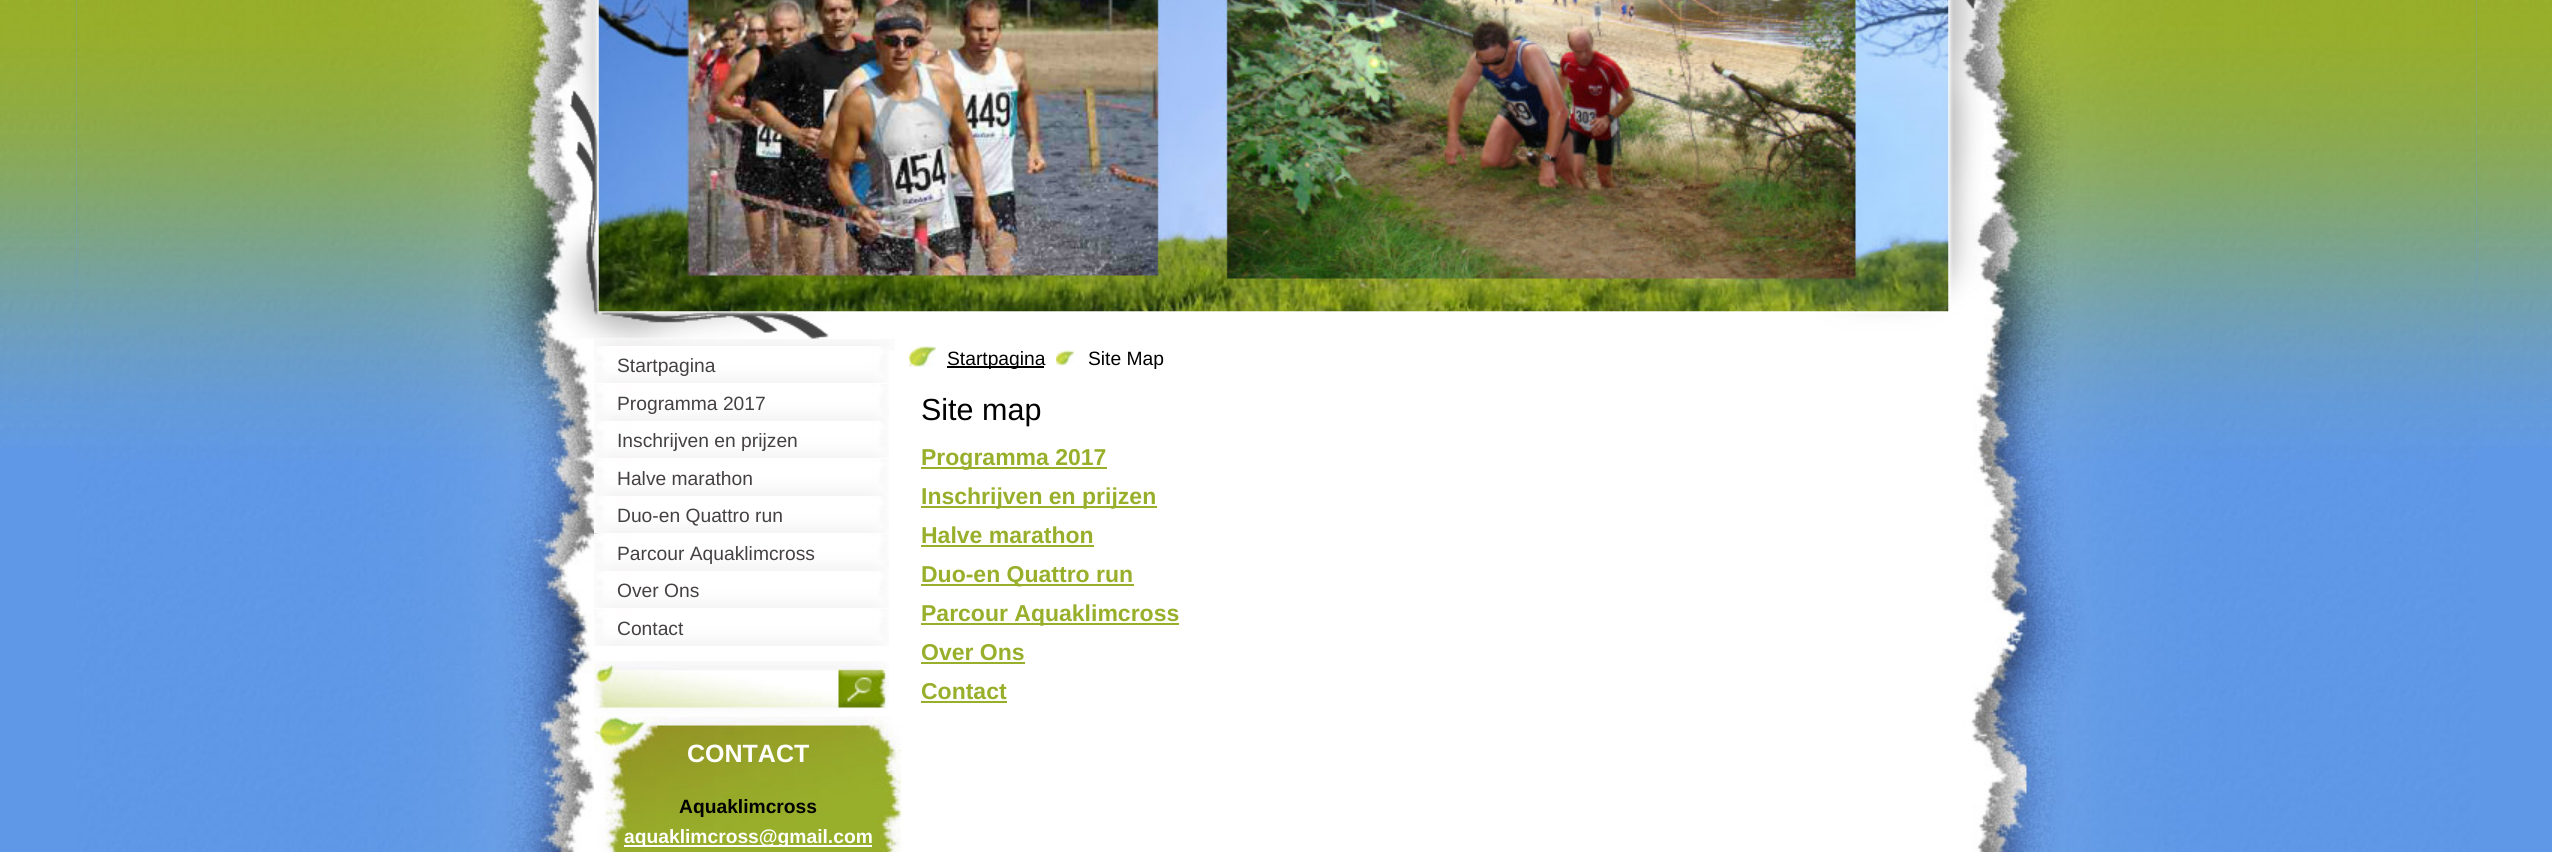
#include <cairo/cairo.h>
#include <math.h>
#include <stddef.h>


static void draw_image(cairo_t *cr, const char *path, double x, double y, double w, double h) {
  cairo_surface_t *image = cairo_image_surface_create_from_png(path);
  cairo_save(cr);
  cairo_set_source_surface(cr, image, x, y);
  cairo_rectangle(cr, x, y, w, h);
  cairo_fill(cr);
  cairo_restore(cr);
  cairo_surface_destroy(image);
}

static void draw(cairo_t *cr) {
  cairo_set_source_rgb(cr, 94 / 255.0, 152 / 255.0, 230 / 255.0);
  cairo_paint(cr);
  draw_image(cr, "images/1.png", 0, 0, 2552, 449);
  draw_image(cr, "images/2.png", 76, 0, 2401, 852);
  draw_image(cr, "images/3.png", 76, 0, 2401, 460);
  draw_image(cr, "images/4.png", 555, 0, 1429, 339);
  draw_image(cr, "images/5.png", 598, 0, 1351, 312);
  draw_image(cr, "images/6.png", 594, 339, 301, 12);
  draw_image(cr, "images/7.png", 594, 346, 295, 37);
  draw_image(cr, "images/8.png", 594, 384, 295, 37);
  draw_image(cr, "images/7.png", 594, 421, 295, 37);
  draw_image(cr, "images/8.png", 594, 459, 295, 37);
  draw_image(cr, "images/9.png", 594, 496, 295, 38);
  draw_image(cr, "images/10.png", 594, 533, 295, 38);
  draw_image(cr, "images/7.png", 594, 571, 295, 37);
  draw_image(cr, "images/8.png", 594, 609, 295, 37);
  draw_image(cr, "images/13.png", 594, 716, 308, 136);
  draw_image(cr, "images/11.png", 594, 661, 245, 56);
  draw_image(cr, "images/12.png", 838, 661, 51, 49);
  cairo_set_source_rgb(cr, 1, 1, 1);
  cairo_rectangle(cr, 624, 845, 248, 2);
  cairo_fill(cr);
  draw_image(cr, "images/14.png", 909, 346, 27, 21);
  cairo_set_source_rgb(cr, 0, 0, 0);
  cairo_rectangle(cr, 947, 366, 97, 2);
  cairo_fill(cr);
  draw_image(cr, "images/15.png", 1056, 350, 18, 16);
  cairo_set_source_rgb(cr, 152 / 255.0, 175 / 255.0, 43 / 255.0);
  cairo_rectangle(cr, 921, 467, 186, 2);
  cairo_fill(cr);
  cairo_rectangle(cr, 921, 506, 236, 2);
  cairo_fill(cr);
  cairo_rectangle(cr, 921, 545, 173, 2);
  cairo_fill(cr);
  cairo_rectangle(cr, 921, 584, 213, 2);
  cairo_fill(cr);
  cairo_rectangle(cr, 921, 623, 258, 2);
  cairo_fill(cr);
  cairo_rectangle(cr, 921, 662, 104, 2);
  cairo_fill(cr);
  cairo_rectangle(cr, 921, 701, 86, 2);
  cairo_fill(cr);
  cairo_select_font_face(cr, "Liberation Sans", CAIRO_FONT_SLANT_NORMAL, CAIRO_FONT_WEIGHT_NORMAL);
  cairo_set_font_size(cr, 19.25);
  cairo_set_source_rgb(cr, 69 / 255.0, 65 / 255.0, 67 / 255.0);
  cairo_move_to(cr, 617, 372);
  cairo_show_text(cr, "Startpagina");
  cairo_move_to(cr, 617, 410);
  cairo_show_text(cr, "Programma 2017");
  cairo_move_to(cr, 617, 447);
  cairo_show_text(cr, "Inschrijven en prijzen");
  cairo_move_to(cr, 617, 485);
  cairo_show_text(cr, "Halve marathon");
  cairo_move_to(cr, 617, 522);
  cairo_show_text(cr, "Duo-en Quattro run");
  cairo_move_to(cr, 617, 560);
  cairo_show_text(cr, "Parcour Aquaklimcross");
  cairo_move_to(cr, 617, 597);
  cairo_show_text(cr, "Over Ons");
  cairo_move_to(cr, 617, 635);
  cairo_show_text(cr, "Contact");
  cairo_select_font_face(cr, "Liberation Sans", CAIRO_FONT_SLANT_NORMAL, CAIRO_FONT_WEIGHT_BOLD);
  cairo_set_font_size(cr, 25);
  cairo_set_source_rgb(cr, 1, 1, 1);
  cairo_move_to(cr, 687, 762);
  cairo_show_text(cr, "CONTACT");
  cairo_set_font_size(cr, 19.25);
  cairo_set_source_rgb(cr, 0, 0, 0);
  cairo_move_to(cr, 679, 813);
  cairo_show_text(cr, "Aquaklimcross");
  cairo_set_source_rgb(cr, 1, 1, 1);
  cairo_move_to(cr, 624, 843);
  cairo_show_text(cr, "aquaklimcross@gmail.com");
  cairo_select_font_face(cr, "Liberation Sans", CAIRO_FONT_SLANT_NORMAL, CAIRO_FONT_WEIGHT_NORMAL);
  cairo_set_source_rgb(cr, 0, 0, 0);
  cairo_move_to(cr, 947, 365);
  cairo_show_text(cr, "Startpagina");
  cairo_move_to(cr, 1088, 365);
  cairo_show_text(cr, "Site Map");
  cairo_set_font_size(cr, 30.5);
  cairo_move_to(cr, 921, 420);
  cairo_show_text(cr, "Site map");
  cairo_select_font_face(cr, "Liberation Sans", CAIRO_FONT_SLANT_NORMAL, CAIRO_FONT_WEIGHT_BOLD);
  cairo_set_font_size(cr, 23);
  cairo_set_source_rgb(cr, 152 / 255.0, 175 / 255.0, 43 / 255.0);
  cairo_move_to(cr, 921, 465);
  cairo_show_text(cr, "Programma 2017");
  cairo_move_to(cr, 921, 504);
  cairo_show_text(cr, "Inschrijven en prijzen");
  cairo_move_to(cr, 921, 543);
  cairo_show_text(cr, "Halve marathon");
  cairo_move_to(cr, 921, 582);
  cairo_show_text(cr, "Duo-en Quattro run");
  cairo_move_to(cr, 921, 621);
  cairo_show_text(cr, "Parcour Aquaklimcross");
  cairo_move_to(cr, 921, 660);
  cairo_show_text(cr, "Over Ons");
  cairo_move_to(cr, 921, 699);
  cairo_show_text(cr, "Contact");
}

int main(void) {
  cairo_surface_t *surface = cairo_image_surface_create(CAIRO_FORMAT_RGB24, 2552, 852);
  cairo_t *cr = cairo_create(surface);
  cairo_font_options_t *options = cairo_font_options_create();
  cairo_font_options_set_hint_metrics(options, CAIRO_HINT_METRICS_OFF);
  cairo_font_options_set_hint_style(options, CAIRO_HINT_STYLE_NONE);
  cairo_set_font_options(cr, options);
  cairo_set_miter_limit(cr, 4);
  draw(cr);
  cairo_surface_write_to_png(surface, "out.png");
  cairo_font_options_destroy(options);
  cairo_destroy(cr);
  cairo_surface_destroy(surface);
  return 0;
}
